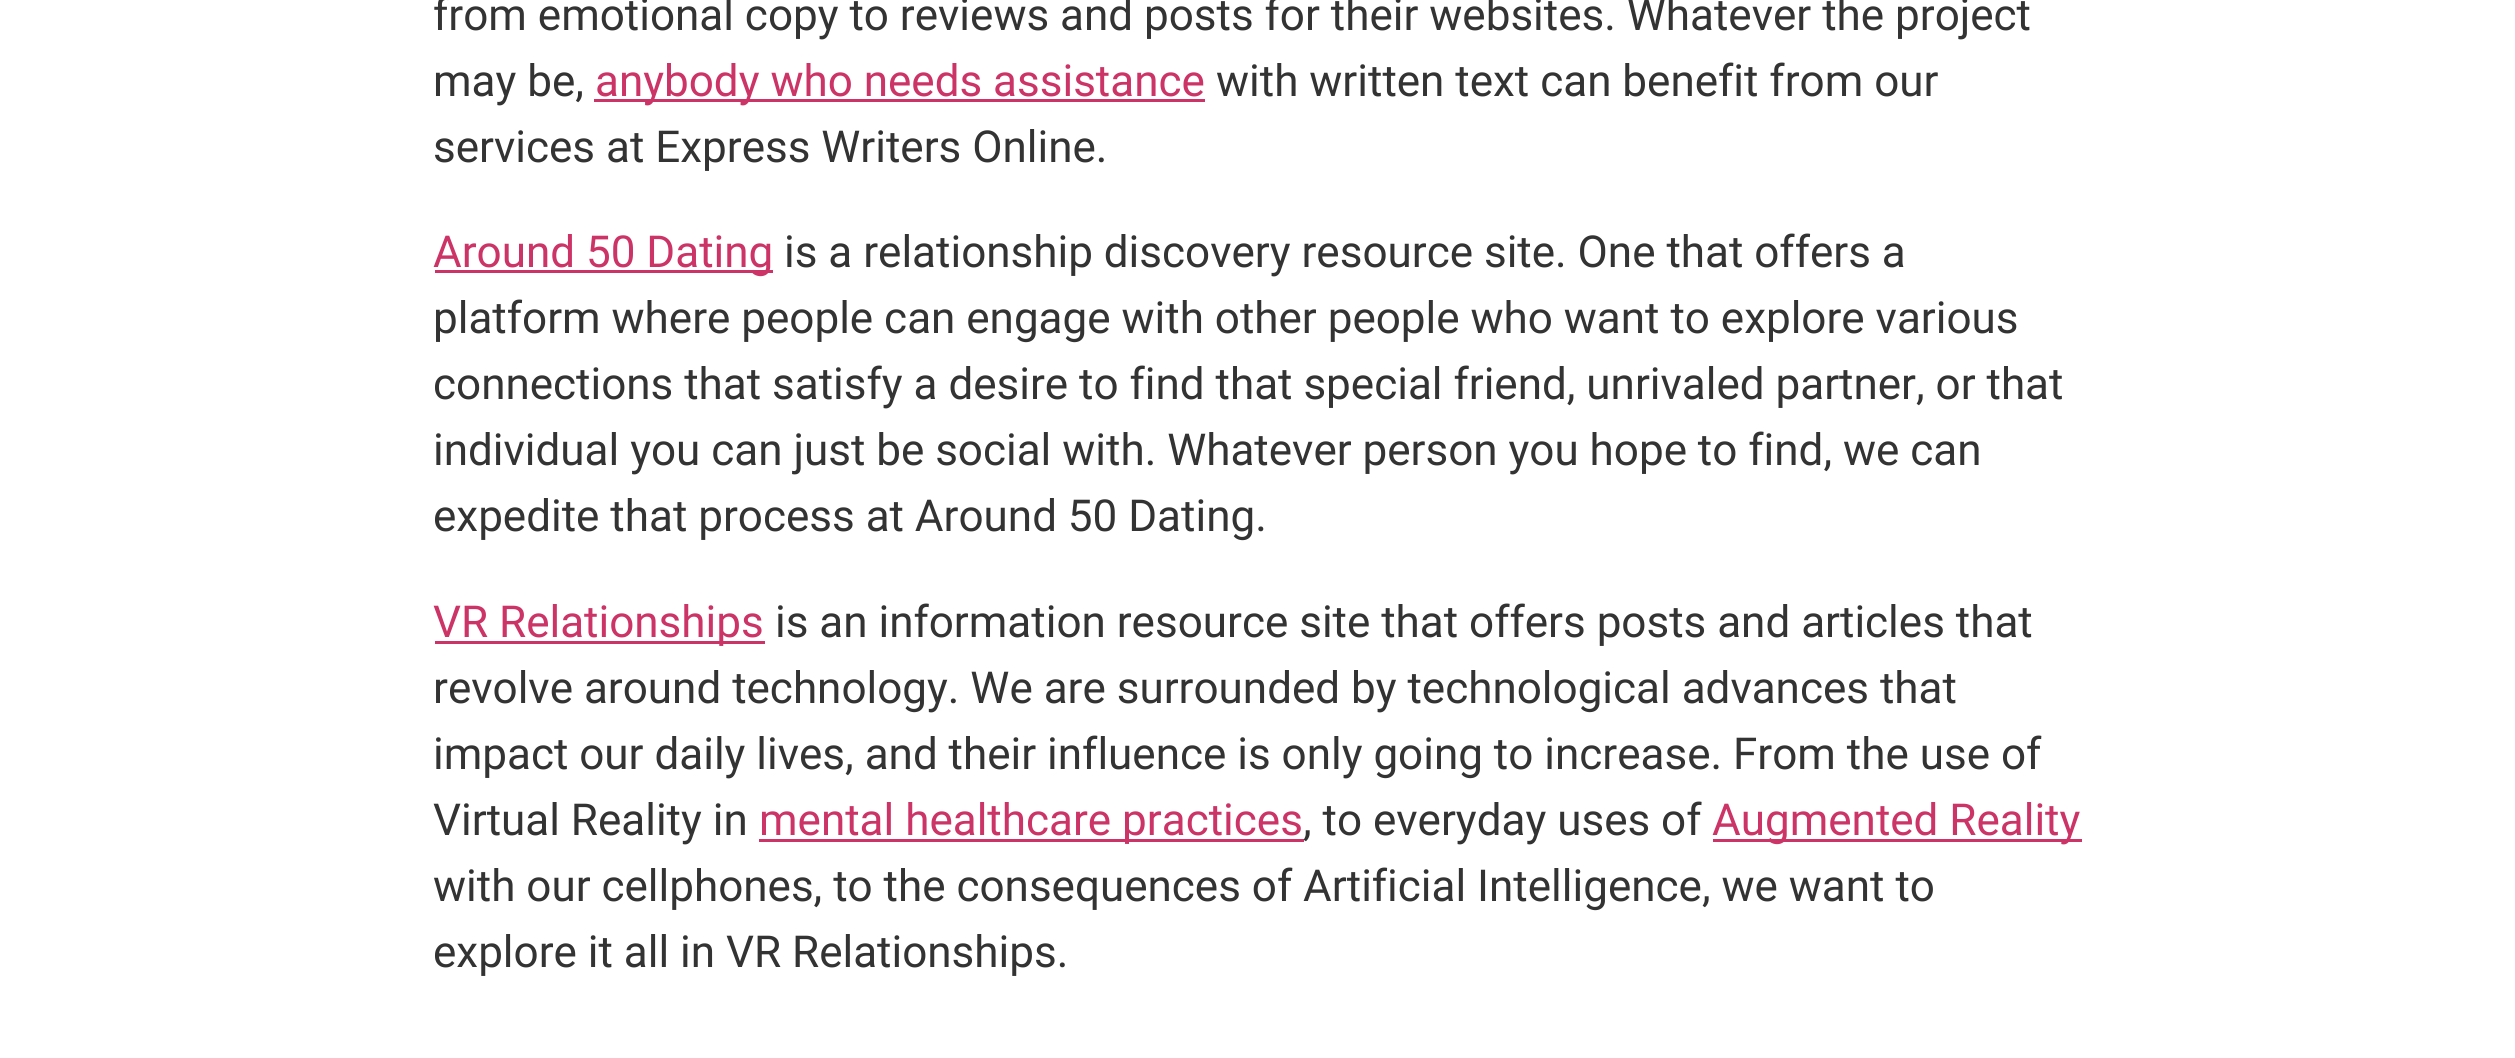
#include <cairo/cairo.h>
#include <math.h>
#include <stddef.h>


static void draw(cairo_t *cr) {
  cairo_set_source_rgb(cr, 1, 1, 1);
  cairo_paint(cr);
  cairo_set_source_rgb(cr, 204 / 255.0, 51 / 255.0, 102 / 255.0);
  cairo_rectangle(cr, 594, 99, 611, 3);
  cairo_fill(cr);
  cairo_rectangle(cr, 435, 270, 338, 3);
  cairo_fill(cr);
  cairo_rectangle(cr, 435, 641, 330, 3);
  cairo_fill(cr);
  cairo_rectangle(cr, 759, 839, 545, 3);
  cairo_fill(cr);
  cairo_rectangle(cr, 1713, 839, 369, 3);
  cairo_fill(cr);
  cairo_select_font_face(cr, "Roboto", CAIRO_FONT_SLANT_NORMAL, CAIRO_FONT_WEIGHT_NORMAL);
  cairo_set_font_size(cr, 44);
  cairo_set_source_rgb(cr, 51 / 255.0, 51 / 255.0, 51 / 255.0);
  cairo_move_to(cr, 433, 30);
  cairo_show_text(cr, "from emotional copy to reviews and posts for their websites. Whatever the project");
  cairo_move_to(cr, 433, 96);
  cairo_show_text(cr, "may be,");
  cairo_set_source_rgb(cr, 204 / 255.0, 51 / 255.0, 102 / 255.0);
  cairo_move_to(cr, 595, 96);
  cairo_show_text(cr, "anybody who needs assistance");
  cairo_set_source_rgb(cr, 51 / 255.0, 51 / 255.0, 51 / 255.0);
  cairo_move_to(cr, 1216, 96);
  cairo_show_text(cr, "with written text can benefit from our");
  cairo_move_to(cr, 433, 162);
  cairo_show_text(cr, "services at Express Writers Online.");
  cairo_set_source_rgb(cr, 204 / 255.0, 51 / 255.0, 102 / 255.0);
  cairo_move_to(cr, 433, 267);
  cairo_show_text(cr, "Around 50 Dating");
  cairo_set_source_rgb(cr, 51 / 255.0, 51 / 255.0, 51 / 255.0);
  cairo_move_to(cr, 784, 267);
  cairo_show_text(cr, "is a relationship discovery resource site. One that offers a");
  cairo_move_to(cr, 433, 333);
  cairo_show_text(cr, "platform where people can engage with other people who want to explore various");
  cairo_move_to(cr, 433, 399);
  cairo_show_text(cr, "connections that satisfy a desire to find that special friend, unrivaled partner, or that");
  cairo_move_to(cr, 433, 465);
  cairo_show_text(cr, "individual you can just be social with. Whatever person you hope to find, we can");
  cairo_move_to(cr, 433, 531);
  cairo_show_text(cr, "expedite that process at Around 50 Dating.");
  cairo_set_source_rgb(cr, 204 / 255.0, 51 / 255.0, 102 / 255.0);
  cairo_move_to(cr, 433, 637);
  cairo_show_text(cr, "VR Relationships");
  cairo_set_source_rgb(cr, 51 / 255.0, 51 / 255.0, 51 / 255.0);
  cairo_move_to(cr, 775, 637);
  cairo_show_text(cr, "is an information resource site that offers posts and articles that");
  cairo_move_to(cr, 433, 703);
  cairo_show_text(cr, "revolve around technology. We are surrounded by technological advances that");
  cairo_move_to(cr, 433, 769);
  cairo_show_text(cr, "impact our daily lives, and their influence is only going to increase. From the use of");
  cairo_move_to(cr, 433, 835);
  cairo_show_text(cr, "Virtual Reality in");
  cairo_set_source_rgb(cr, 204 / 255.0, 51 / 255.0, 102 / 255.0);
  cairo_move_to(cr, 759, 835);
  cairo_show_text(cr, "mental healthcare practices");
  cairo_set_source_rgb(cr, 51 / 255.0, 51 / 255.0, 51 / 255.0);
  cairo_move_to(cr, 1303, 835);
  cairo_show_text(cr, ", to everyday uses of");
  cairo_set_source_rgb(cr, 204 / 255.0, 51 / 255.0, 102 / 255.0);
  cairo_move_to(cr, 1712, 835);
  cairo_show_text(cr, "Augmented Reality");
  cairo_set_source_rgb(cr, 51 / 255.0, 51 / 255.0, 51 / 255.0);
  cairo_move_to(cr, 433, 901);
  cairo_show_text(cr, "with our cellphones, to the consequences of Artificial Intelligence, we want to");
  cairo_move_to(cr, 433, 967);
  cairo_show_text(cr, "explore it all in VR Relationships.");
}

int main(void) {
  cairo_surface_t *surface = cairo_image_surface_create(CAIRO_FORMAT_RGB24, 2515, 1058);
  cairo_t *cr = cairo_create(surface);
  cairo_font_options_t *options = cairo_font_options_create();
  cairo_font_options_set_hint_metrics(options, CAIRO_HINT_METRICS_OFF);
  cairo_font_options_set_hint_style(options, CAIRO_HINT_STYLE_NONE);
  cairo_set_font_options(cr, options);
  cairo_set_miter_limit(cr, 4);
  draw(cr);
  cairo_surface_write_to_png(surface, "out.png");
  cairo_font_options_destroy(options);
  cairo_destroy(cr);
  cairo_surface_destroy(surface);
  return 0;
}
